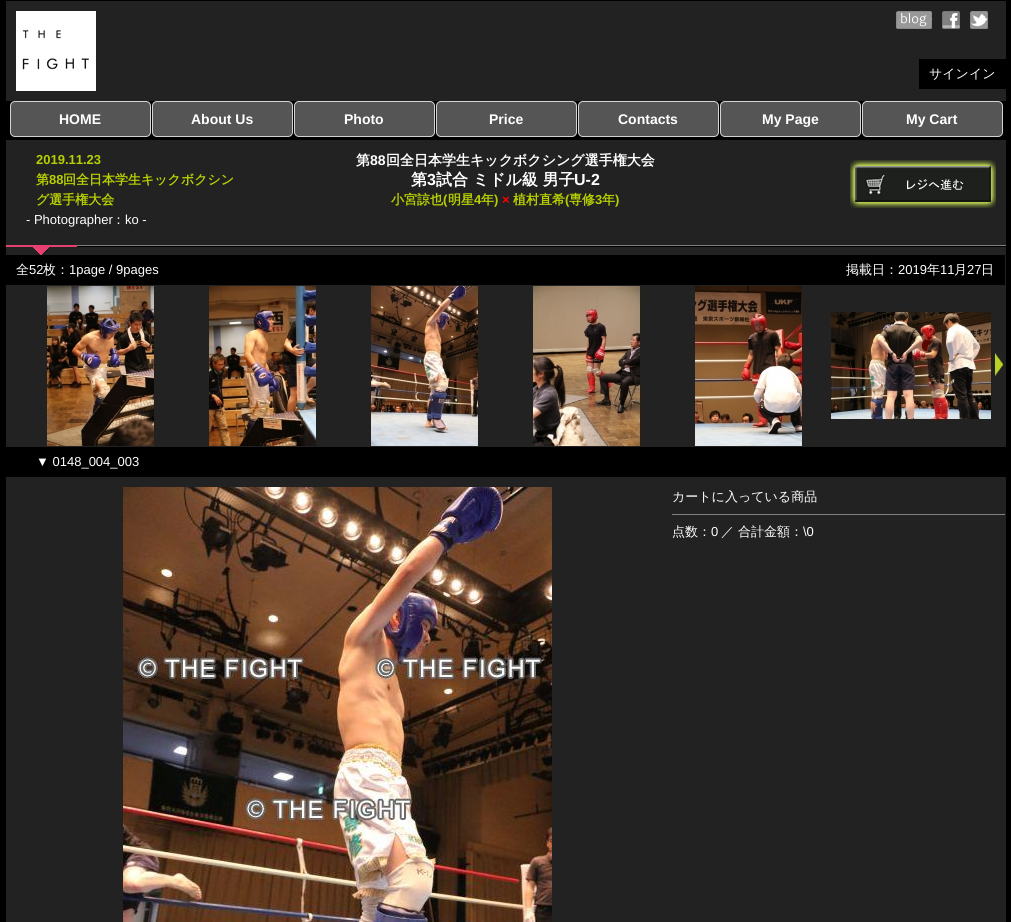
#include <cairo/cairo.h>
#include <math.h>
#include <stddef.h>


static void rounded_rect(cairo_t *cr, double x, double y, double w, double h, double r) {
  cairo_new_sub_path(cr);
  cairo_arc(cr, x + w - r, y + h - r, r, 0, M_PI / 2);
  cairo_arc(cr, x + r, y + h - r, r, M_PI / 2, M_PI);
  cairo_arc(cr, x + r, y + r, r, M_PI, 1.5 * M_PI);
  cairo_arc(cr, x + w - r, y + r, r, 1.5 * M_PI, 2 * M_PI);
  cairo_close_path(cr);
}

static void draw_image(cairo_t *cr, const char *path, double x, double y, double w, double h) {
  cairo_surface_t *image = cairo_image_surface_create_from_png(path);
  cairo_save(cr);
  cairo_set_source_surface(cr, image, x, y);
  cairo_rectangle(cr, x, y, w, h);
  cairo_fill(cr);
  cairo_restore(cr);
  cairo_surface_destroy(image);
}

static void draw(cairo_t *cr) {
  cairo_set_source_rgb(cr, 0, 0, 0);
  cairo_paint(cr);
  cairo_set_source_rgb(cr, 34 / 255.0, 34 / 255.0, 34 / 255.0);
  cairo_rectangle(cr, 6, 1, 1000, 100);
  cairo_fill(cr);
  draw_image(cr, "images/1.png", 16, 11, 80, 80);
  draw_image(cr, "images/2.png", 896, 11, 36, 18);
  draw_image(cr, "images/3.png", 942, 11, 18, 18);
  draw_image(cr, "images/4.png", 970, 11, 18, 18);
  cairo_set_source_rgb(cr, 0, 0, 0);
  cairo_rectangle(cr, 919, 59, 87, 30);
  cairo_fill(cr);
  cairo_set_source_rgb(cr, 85 / 255.0, 85 / 255.0, 85 / 255.0);
  rounded_rect(cr, 10.5, 101.5, 140, 35, 4.5);
  cairo_fill_preserve(cr);
  cairo_set_source_rgb(cr, 211 / 255.0, 211 / 255.0, 211 / 255.0);
  cairo_set_line_width(cr, 1);
  cairo_stroke(cr);
  cairo_set_source_rgb(cr, 85 / 255.0, 85 / 255.0, 85 / 255.0);
  rounded_rect(cr, 152.5, 101.5, 140, 35, 4.5);
  cairo_fill_preserve(cr);
  cairo_set_source_rgb(cr, 211 / 255.0, 211 / 255.0, 211 / 255.0);
  cairo_stroke(cr);
  cairo_set_source_rgb(cr, 85 / 255.0, 85 / 255.0, 85 / 255.0);
  rounded_rect(cr, 294.5, 101.5, 140, 35, 4.5);
  cairo_fill_preserve(cr);
  cairo_set_source_rgb(cr, 211 / 255.0, 211 / 255.0, 211 / 255.0);
  cairo_stroke(cr);
  cairo_set_source_rgb(cr, 85 / 255.0, 85 / 255.0, 85 / 255.0);
  rounded_rect(cr, 436.5, 101.5, 140, 35, 4.5);
  cairo_fill_preserve(cr);
  cairo_set_source_rgb(cr, 211 / 255.0, 211 / 255.0, 211 / 255.0);
  cairo_stroke(cr);
  cairo_set_source_rgb(cr, 85 / 255.0, 85 / 255.0, 85 / 255.0);
  rounded_rect(cr, 578.5, 101.5, 140, 35, 4.5);
  cairo_fill_preserve(cr);
  cairo_set_source_rgb(cr, 211 / 255.0, 211 / 255.0, 211 / 255.0);
  cairo_stroke(cr);
  cairo_set_source_rgb(cr, 85 / 255.0, 85 / 255.0, 85 / 255.0);
  rounded_rect(cr, 720.5, 101.5, 140, 35, 4.5);
  cairo_fill_preserve(cr);
  cairo_set_source_rgb(cr, 211 / 255.0, 211 / 255.0, 211 / 255.0);
  cairo_stroke(cr);
  cairo_set_source_rgb(cr, 85 / 255.0, 85 / 255.0, 85 / 255.0);
  rounded_rect(cr, 862.5, 101.5, 140, 35, 4.5);
  cairo_fill_preserve(cr);
  cairo_set_source_rgb(cr, 211 / 255.0, 211 / 255.0, 211 / 255.0);
  cairo_stroke(cr);
  cairo_set_source_rgb(cr, 34 / 255.0, 34 / 255.0, 34 / 255.0);
  cairo_rectangle(cr, 6, 140, 1000, 782);
  cairo_fill(cr);
  draw_image(cr, "images/5.png", 850, 160, 146, 48);
  draw_image(cr, "images/6.png", 6, 245, 1000, 10);
  cairo_set_source_rgb(cr, 0, 0, 0);
  cairo_rectangle(cr, 6, 255, 999, 30);
  cairo_fill(cr);
  draw_image(cr, "images/7.png", 46, 286, 110, 160);
  draw_image(cr, "images/8.png", 208, 286, 110, 160);
  draw_image(cr, "images/9.png", 370, 286, 110, 160);
  draw_image(cr, "images/10.png", 532, 286, 110, 160);
  draw_image(cr, "images/11.png", 694, 286, 110, 160);
  draw_image(cr, "images/12.png", 831, 311, 160, 110);
  draw_image(cr, "images/13.png", 995, 353, 8, 23);
  cairo_rectangle(cr, 6, 447, 1000, 30);
  cairo_fill(cr);
  draw_image(cr, "images/14.png", 123, 487, 429, 435);
  cairo_set_source_rgb(cr, 128 / 255.0, 128 / 255.0, 128 / 255.0);
  cairo_rectangle(cr, 672, 514, 333, 1);
  cairo_fill(cr);
  cairo_select_font_face(cr, "WenQuanYi Zen Hei Medium", CAIRO_FONT_SLANT_NORMAL, CAIRO_FONT_WEIGHT_NORMAL);
  cairo_set_font_size(cr, 13);
  cairo_set_source_rgb(cr, 1, 1, 1);
  cairo_move_to(cr, 929, 78);
  cairo_show_text(cr, "サインイン");
  cairo_select_font_face(cr, "Liberation Sans", CAIRO_FONT_SLANT_NORMAL, CAIRO_FONT_WEIGHT_BOLD);
  cairo_set_font_size(cr, 14);
  cairo_move_to(cr, 59, 124);
  cairo_show_text(cr, "HOME");
  cairo_move_to(cr, 191, 124);
  cairo_show_text(cr, "About Us");
  cairo_move_to(cr, 344, 124);
  cairo_show_text(cr, "Photo");
  cairo_move_to(cr, 489, 124);
  cairo_show_text(cr, "Price");
  cairo_move_to(cr, 618, 124);
  cairo_show_text(cr, "Contacts");
  cairo_move_to(cr, 762, 124);
  cairo_show_text(cr, "My Page");
  cairo_move_to(cr, 906, 124);
  cairo_show_text(cr, "My Cart");
  cairo_set_font_size(cr, 13);
  cairo_set_source_rgb(cr, 183 / 255.0, 207 / 255.0, 0);
  cairo_move_to(cr, 36, 164);
  cairo_show_text(cr, "2019.11.23");
  cairo_select_font_face(cr, "WenQuanYi Zen Hei", CAIRO_FONT_SLANT_NORMAL, CAIRO_FONT_WEIGHT_BOLD);
  cairo_move_to(cr, 36, 184);
  cairo_show_text(cr, "第");
  cairo_select_font_face(cr, "Liberation Sans", CAIRO_FONT_SLANT_NORMAL, CAIRO_FONT_WEIGHT_BOLD);
  cairo_move_to(cr, 49, 184);
  cairo_show_text(cr, "88");
  cairo_select_font_face(cr, "WenQuanYi Zen Hei", CAIRO_FONT_SLANT_NORMAL, CAIRO_FONT_WEIGHT_BOLD);
  cairo_move_to(cr, 63, 184);
  cairo_show_text(cr, "回全日本学生キックボクシン");
  cairo_move_to(cr, 36, 204);
  cairo_show_text(cr, "グ選手権大会");
  cairo_select_font_face(cr, "Liberation Sans", CAIRO_FONT_SLANT_NORMAL, CAIRO_FONT_WEIGHT_NORMAL);
  cairo_set_source_rgb(cr, 1, 1, 1);
  cairo_move_to(cr, 26, 224);
  cairo_show_text(cr, "- Photographer");
  cairo_select_font_face(cr, "WenQuanYi Zen Hei Medium", CAIRO_FONT_SLANT_NORMAL, CAIRO_FONT_WEIGHT_NORMAL);
  cairo_move_to(cr, 112, 224);
  cairo_show_text(cr, "：");
  cairo_select_font_face(cr, "Liberation Sans", CAIRO_FONT_SLANT_NORMAL, CAIRO_FONT_WEIGHT_NORMAL);
  cairo_move_to(cr, 125, 224);
  cairo_show_text(cr, "ko -");
  cairo_select_font_face(cr, "WenQuanYi Zen Hei", CAIRO_FONT_SLANT_NORMAL, CAIRO_FONT_WEIGHT_BOLD);
  cairo_set_font_size(cr, 14);
  cairo_move_to(cr, 356, 165);
  cairo_show_text(cr, "第");
  cairo_select_font_face(cr, "Liberation Sans", CAIRO_FONT_SLANT_NORMAL, CAIRO_FONT_WEIGHT_BOLD);
  cairo_move_to(cr, 370, 165);
  cairo_show_text(cr, "88");
  cairo_select_font_face(cr, "WenQuanYi Zen Hei", CAIRO_FONT_SLANT_NORMAL, CAIRO_FONT_WEIGHT_BOLD);
  cairo_move_to(cr, 386, 165);
  cairo_show_text(cr, "回全日本学生キックボクシング選手権大会");
  cairo_set_font_size(cr, 16);
  cairo_move_to(cr, 411, 185);
  cairo_show_text(cr, "第");
  cairo_select_font_face(cr, "Liberation Sans", CAIRO_FONT_SLANT_NORMAL, CAIRO_FONT_WEIGHT_BOLD);
  cairo_move_to(cr, 427, 185);
  cairo_show_text(cr, "3");
  cairo_select_font_face(cr, "WenQuanYi Zen Hei", CAIRO_FONT_SLANT_NORMAL, CAIRO_FONT_WEIGHT_BOLD);
  cairo_move_to(cr, 436, 185);
  cairo_show_text(cr, "試合 ミドル級 男子");
  cairo_select_font_face(cr, "Liberation Sans", CAIRO_FONT_SLANT_NORMAL, CAIRO_FONT_WEIGHT_BOLD);
  cairo_move_to(cr, 574, 185);
  cairo_show_text(cr, "U-2");
  cairo_select_font_face(cr, "WenQuanYi Zen Hei", CAIRO_FONT_SLANT_NORMAL, CAIRO_FONT_WEIGHT_BOLD);
  cairo_set_font_size(cr, 13);
  cairo_set_source_rgb(cr, 183 / 255.0, 207 / 255.0, 0);
  cairo_move_to(cr, 391, 204);
  cairo_show_text(cr, "小宮諒也");
  cairo_select_font_face(cr, "Liberation Sans", CAIRO_FONT_SLANT_NORMAL, CAIRO_FONT_WEIGHT_BOLD);
  cairo_move_to(cr, 443, 204);
  cairo_show_text(cr, "(");
  cairo_select_font_face(cr, "WenQuanYi Zen Hei", CAIRO_FONT_SLANT_NORMAL, CAIRO_FONT_WEIGHT_BOLD);
  cairo_move_to(cr, 448, 204);
  cairo_show_text(cr, "明星");
  cairo_select_font_face(cr, "Liberation Sans", CAIRO_FONT_SLANT_NORMAL, CAIRO_FONT_WEIGHT_BOLD);
  cairo_move_to(cr, 474, 204);
  cairo_show_text(cr, "4");
  cairo_select_font_face(cr, "WenQuanYi Zen Hei", CAIRO_FONT_SLANT_NORMAL, CAIRO_FONT_WEIGHT_BOLD);
  cairo_move_to(cr, 481, 204);
  cairo_show_text(cr, "年");
  cairo_select_font_face(cr, "Liberation Sans", CAIRO_FONT_SLANT_NORMAL, CAIRO_FONT_WEIGHT_BOLD);
  cairo_move_to(cr, 494, 204);
  cairo_show_text(cr, ")");
  cairo_set_source_rgb(cr, 1, 0, 0);
  cairo_move_to(cr, 502, 204);
  cairo_show_text(cr, "×");
  cairo_select_font_face(cr, "WenQuanYi Zen Hei", CAIRO_FONT_SLANT_NORMAL, CAIRO_FONT_WEIGHT_BOLD);
  cairo_set_source_rgb(cr, 183 / 255.0, 207 / 255.0, 0);
  cairo_move_to(cr, 513, 204);
  cairo_show_text(cr, "植村直希");
  cairo_select_font_face(cr, "Liberation Sans", CAIRO_FONT_SLANT_NORMAL, CAIRO_FONT_WEIGHT_BOLD);
  cairo_move_to(cr, 565, 204);
  cairo_show_text(cr, "(");
  cairo_select_font_face(cr, "WenQuanYi Zen Hei", CAIRO_FONT_SLANT_NORMAL, CAIRO_FONT_WEIGHT_BOLD);
  cairo_move_to(cr, 569, 204);
  cairo_show_text(cr, "専修");
  cairo_select_font_face(cr, "Liberation Sans", CAIRO_FONT_SLANT_NORMAL, CAIRO_FONT_WEIGHT_BOLD);
  cairo_move_to(cr, 595, 204);
  cairo_show_text(cr, "3");
  cairo_select_font_face(cr, "WenQuanYi Zen Hei", CAIRO_FONT_SLANT_NORMAL, CAIRO_FONT_WEIGHT_BOLD);
  cairo_move_to(cr, 602, 204);
  cairo_show_text(cr, "年");
  cairo_select_font_face(cr, "Liberation Sans", CAIRO_FONT_SLANT_NORMAL, CAIRO_FONT_WEIGHT_BOLD);
  cairo_move_to(cr, 615, 204);
  cairo_show_text(cr, ")");
  cairo_select_font_face(cr, "WenQuanYi Zen Hei Medium", CAIRO_FONT_SLANT_NORMAL, CAIRO_FONT_WEIGHT_NORMAL);
  cairo_set_source_rgb(cr, 1, 1, 1);
  cairo_move_to(cr, 16, 274);
  cairo_show_text(cr, "全");
  cairo_select_font_face(cr, "Liberation Sans", CAIRO_FONT_SLANT_NORMAL, CAIRO_FONT_WEIGHT_NORMAL);
  cairo_move_to(cr, 29, 274);
  cairo_show_text(cr, "52");
  cairo_select_font_face(cr, "WenQuanYi Zen Hei Medium", CAIRO_FONT_SLANT_NORMAL, CAIRO_FONT_WEIGHT_NORMAL);
  cairo_move_to(cr, 43, 274);
  cairo_show_text(cr, "枚：");
  cairo_select_font_face(cr, "Liberation Sans", CAIRO_FONT_SLANT_NORMAL, CAIRO_FONT_WEIGHT_NORMAL);
  cairo_move_to(cr, 69, 274);
  cairo_show_text(cr, "1page / 9pages");
  cairo_select_font_face(cr, "WenQuanYi Zen Hei Medium", CAIRO_FONT_SLANT_NORMAL, CAIRO_FONT_WEIGHT_NORMAL);
  cairo_move_to(cr, 846, 274);
  cairo_show_text(cr, "掲載日：");
  cairo_select_font_face(cr, "Liberation Sans", CAIRO_FONT_SLANT_NORMAL, CAIRO_FONT_WEIGHT_NORMAL);
  cairo_move_to(cr, 898, 274);
  cairo_show_text(cr, "2019");
  cairo_select_font_face(cr, "WenQuanYi Zen Hei Medium", CAIRO_FONT_SLANT_NORMAL, CAIRO_FONT_WEIGHT_NORMAL);
  cairo_move_to(cr, 927, 274);
  cairo_show_text(cr, "年");
  cairo_select_font_face(cr, "Liberation Sans", CAIRO_FONT_SLANT_NORMAL, CAIRO_FONT_WEIGHT_NORMAL);
  cairo_move_to(cr, 940, 274);
  cairo_show_text(cr, "11");
  cairo_select_font_face(cr, "WenQuanYi Zen Hei Medium", CAIRO_FONT_SLANT_NORMAL, CAIRO_FONT_WEIGHT_NORMAL);
  cairo_move_to(cr, 954, 274);
  cairo_show_text(cr, "月");
  cairo_select_font_face(cr, "Liberation Sans", CAIRO_FONT_SLANT_NORMAL, CAIRO_FONT_WEIGHT_NORMAL);
  cairo_move_to(cr, 967, 274);
  cairo_show_text(cr, "27");
  cairo_select_font_face(cr, "WenQuanYi Zen Hei Medium", CAIRO_FONT_SLANT_NORMAL, CAIRO_FONT_WEIGHT_NORMAL);
  cairo_move_to(cr, 981, 274);
  cairo_show_text(cr, "日");
  cairo_select_font_face(cr, "Liberation Sans", CAIRO_FONT_SLANT_NORMAL, CAIRO_FONT_WEIGHT_NORMAL);
  cairo_move_to(cr, 36, 466);
  cairo_show_text(cr, "▼ 0148_004_003");
  cairo_select_font_face(cr, "WenQuanYi Zen Hei Medium", CAIRO_FONT_SLANT_NORMAL, CAIRO_FONT_WEIGHT_NORMAL);
  cairo_move_to(cr, 672, 501);
  cairo_show_text(cr, "カートに入っている商品");
  cairo_move_to(cr, 672, 536);
  cairo_show_text(cr, "点数：");
  cairo_select_font_face(cr, "Liberation Sans", CAIRO_FONT_SLANT_NORMAL, CAIRO_FONT_WEIGHT_NORMAL);
  cairo_move_to(cr, 711, 536);
  cairo_show_text(cr, "0");
  cairo_select_font_face(cr, "WenQuanYi Zen Hei Medium", CAIRO_FONT_SLANT_NORMAL, CAIRO_FONT_WEIGHT_NORMAL);
  cairo_move_to(cr, 721, 536);
  cairo_show_text(cr, "／ 合計金額：");
  cairo_select_font_face(cr, "Liberation Sans", CAIRO_FONT_SLANT_NORMAL, CAIRO_FONT_WEIGHT_NORMAL);
  cairo_move_to(cr, 803, 536);
  cairo_show_text(cr, "\\0");
}

int main(void) {
  cairo_surface_t *surface = cairo_image_surface_create(CAIRO_FORMAT_RGB24, 1011, 922);
  cairo_t *cr = cairo_create(surface);
  cairo_font_options_t *options = cairo_font_options_create();
  cairo_font_options_set_hint_metrics(options, CAIRO_HINT_METRICS_OFF);
  cairo_font_options_set_hint_style(options, CAIRO_HINT_STYLE_NONE);
  cairo_set_font_options(cr, options);
  cairo_set_miter_limit(cr, 4);
  draw(cr);
  cairo_surface_write_to_png(surface, "out.png");
  cairo_font_options_destroy(options);
  cairo_destroy(cr);
  cairo_surface_destroy(surface);
  return 0;
}
